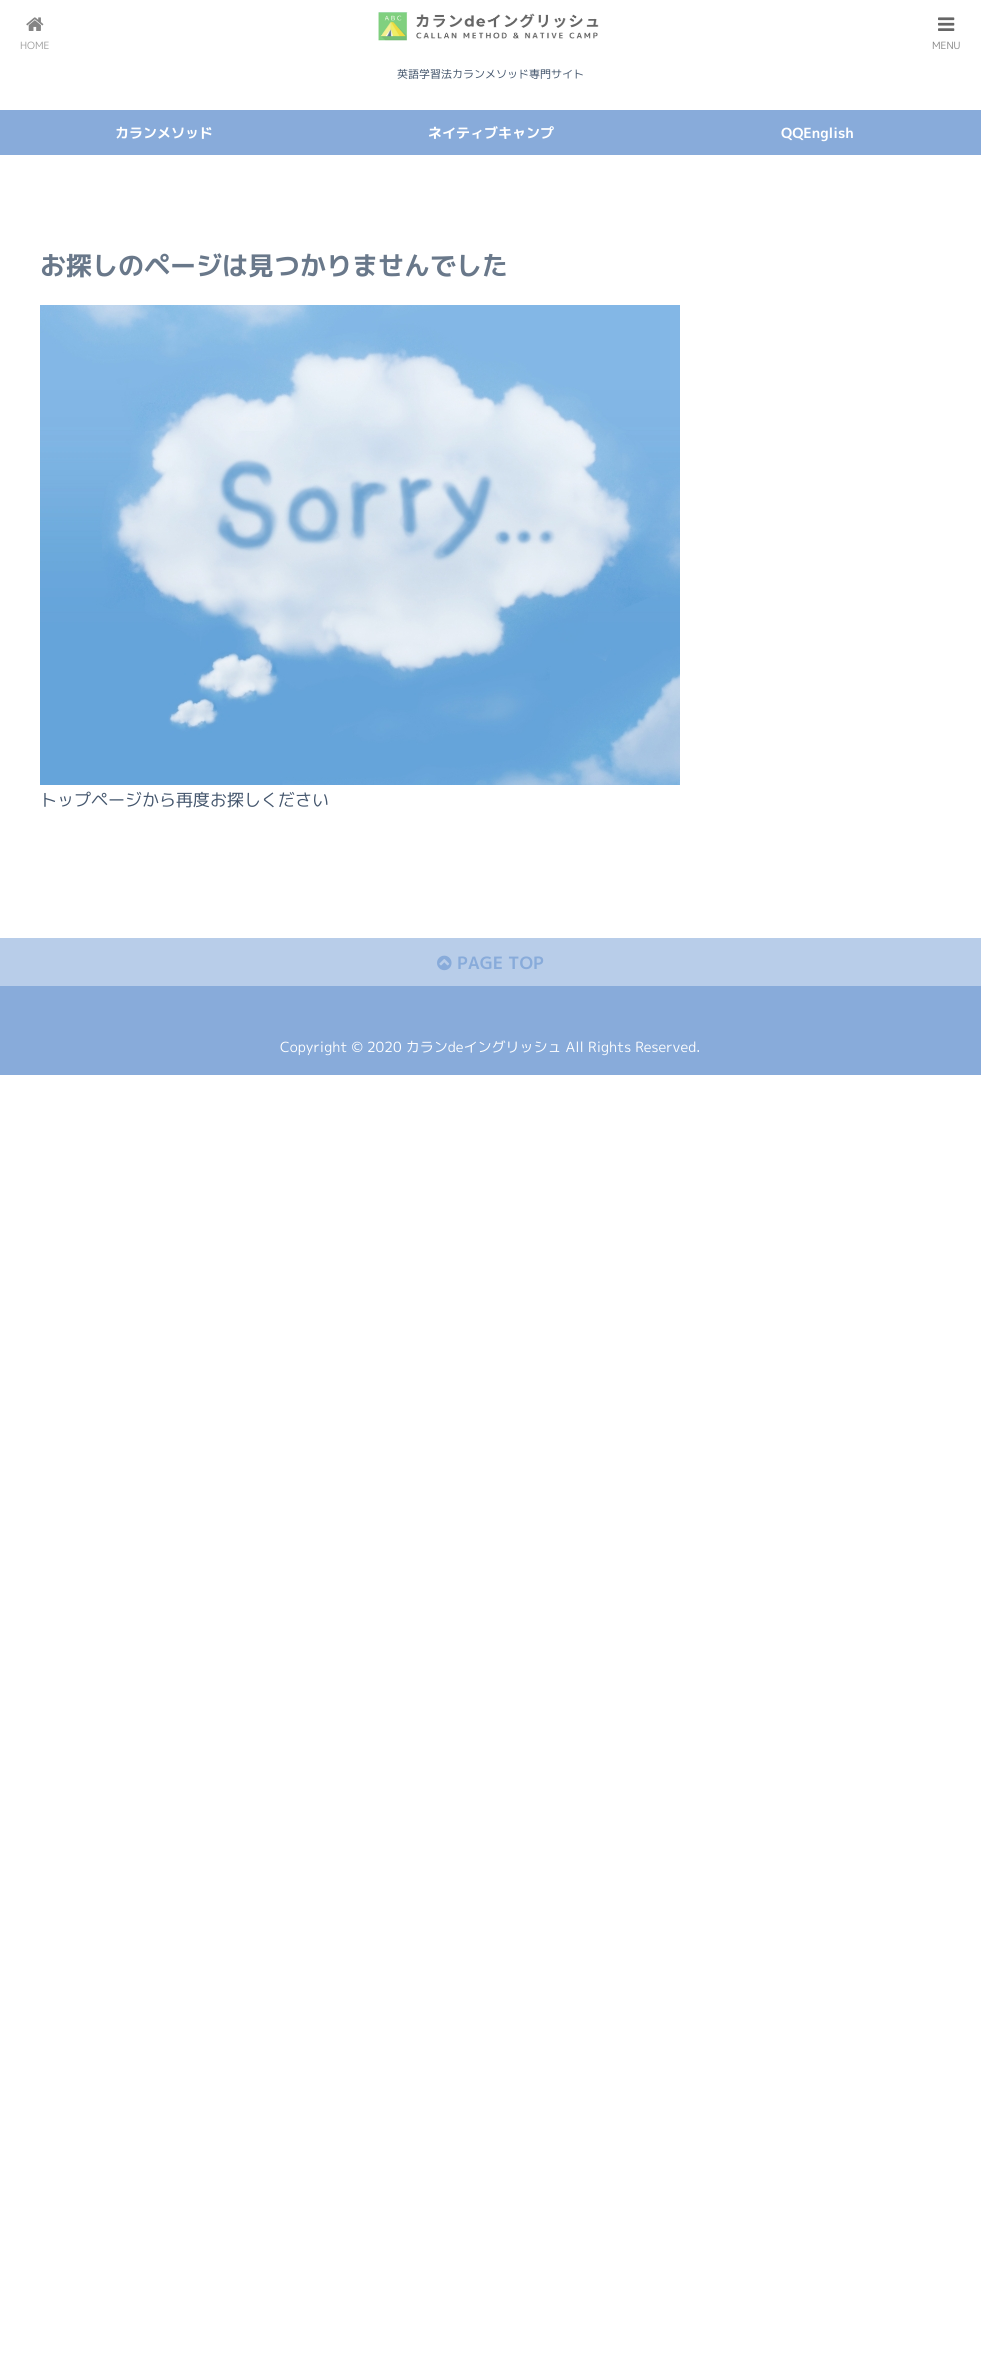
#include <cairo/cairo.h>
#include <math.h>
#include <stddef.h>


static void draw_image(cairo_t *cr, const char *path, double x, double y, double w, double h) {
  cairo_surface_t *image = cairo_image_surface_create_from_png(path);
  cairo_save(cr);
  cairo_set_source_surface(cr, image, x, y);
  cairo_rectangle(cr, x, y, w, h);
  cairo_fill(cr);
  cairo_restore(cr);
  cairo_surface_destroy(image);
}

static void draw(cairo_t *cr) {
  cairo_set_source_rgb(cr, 1, 1, 1);
  cairo_paint(cr);
  draw_image(cr, "images/1.png", 378, 12, 221, 29);
  draw_image(cr, "images/2.png", 26, 17, 18, 14);
  draw_image(cr, "images/3.png", 938, 17, 17, 14);
  cairo_set_source_rgb(cr, 136 / 255.0, 171 / 255.0, 218 / 255.0);
  cairo_rectangle(cr, 0, 110, 981, 45);
  cairo_fill(cr);
  draw_image(cr, "images/4.png", 40, 305, 640, 480);
  cairo_set_source_rgb(cr, 184 / 255.0, 205 / 255.0, 233 / 255.0);
  cairo_rectangle(cr, 0, 938, 981, 48);
  cairo_fill(cr);
  draw_image(cr, "images/5.png", 437, 955, 15, 16);
  cairo_set_source_rgb(cr, 136 / 255.0, 171 / 255.0, 218 / 255.0);
  cairo_rectangle(cr, 0, 986, 981, 89);
  cairo_fill(cr);
  cairo_select_font_face(cr, "M PLUS 1p", CAIRO_FONT_SLANT_NORMAL, CAIRO_FONT_WEIGHT_NORMAL);
  cairo_set_font_size(cr, 10);
  cairo_set_source_rgb(cr, 157 / 255.0, 157 / 255.0, 157 / 255.0);
  cairo_move_to(cr, 20, 49);
  cairo_show_text(cr, "HOME");
  cairo_set_source_rgb(cr, 133 / 255.0, 133 / 255.0, 133 / 255.0);
  cairo_move_to(cr, 932, 49);
  cairo_show_text(cr, "MENU");
  cairo_set_font_size(cr, 11);
  cairo_set_source_rgb(cr, 68 / 255.0, 86 / 255.0, 109 / 255.0);
  cairo_move_to(cr, 397, 78);
  cairo_show_text(cr, "英語学習法カランメソッド専門サイト");
  cairo_select_font_face(cr, "M PLUS 1p", CAIRO_FONT_SLANT_NORMAL, CAIRO_FONT_WEIGHT_BOLD);
  cairo_set_font_size(cr, 14);
  cairo_set_source_rgb(cr, 1, 1, 1);
  cairo_move_to(cr, 115, 138);
  cairo_show_text(cr, "カランメソッド");
  cairo_move_to(cr, 428, 138);
  cairo_show_text(cr, "ネイティブキャンプ");
  cairo_move_to(cr, 781, 138);
  cairo_show_text(cr, "QQEnglish");
  cairo_set_font_size(cr, 26);
  cairo_set_source_rgb(cr, 105 / 255.0, 120 / 255.0, 138 / 255.0);
  cairo_move_to(cr, 40, 275);
  cairo_show_text(cr, "お探しのページは見つかりませんでした");
  cairo_select_font_face(cr, "M PLUS 1p", CAIRO_FONT_SLANT_NORMAL, CAIRO_FONT_WEIGHT_NORMAL);
  cairo_set_font_size(cr, 17);
  cairo_set_source_rgb(cr, 68 / 255.0, 86 / 255.0, 109 / 255.0);
  cairo_move_to(cr, 40, 806);
  cairo_show_text(cr, "トップページから再度お探しください");
  cairo_select_font_face(cr, "M PLUS 1p", CAIRO_FONT_SLANT_NORMAL, CAIRO_FONT_WEIGHT_BOLD);
  cairo_set_source_rgb(cr, 136 / 255.0, 171 / 255.0, 218 / 255.0);
  cairo_move_to(cr, 457, 969);
  cairo_show_text(cr, "PAGE TOP");
  cairo_select_font_face(cr, "M PLUS 1p", CAIRO_FONT_SLANT_NORMAL, CAIRO_FONT_WEIGHT_NORMAL);
  cairo_set_font_size(cr, 14);
  cairo_set_source_rgb(cr, 1, 1, 1);
  cairo_move_to(cr, 280, 1052);
  cairo_show_text(cr, "Copyright © 2020 カランdeイングリッシュ All Rights Reserved.");
}

int main(void) {
  cairo_surface_t *surface = cairo_image_surface_create(CAIRO_FORMAT_RGB24, 981, 2370);
  cairo_t *cr = cairo_create(surface);
  cairo_font_options_t *options = cairo_font_options_create();
  cairo_font_options_set_hint_metrics(options, CAIRO_HINT_METRICS_OFF);
  cairo_font_options_set_hint_style(options, CAIRO_HINT_STYLE_NONE);
  cairo_set_font_options(cr, options);
  cairo_set_miter_limit(cr, 4);
  draw(cr);
  cairo_surface_write_to_png(surface, "out.png");
  cairo_font_options_destroy(options);
  cairo_destroy(cr);
  cairo_surface_destroy(surface);
  return 0;
}
